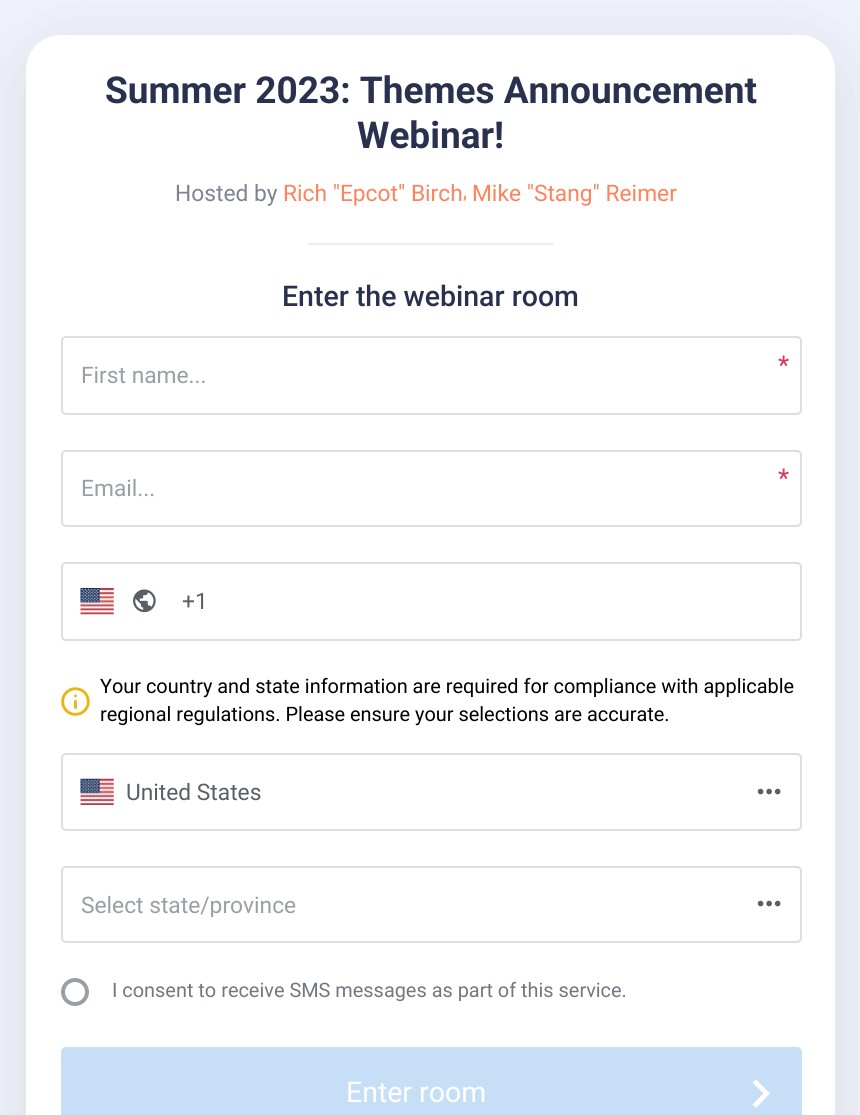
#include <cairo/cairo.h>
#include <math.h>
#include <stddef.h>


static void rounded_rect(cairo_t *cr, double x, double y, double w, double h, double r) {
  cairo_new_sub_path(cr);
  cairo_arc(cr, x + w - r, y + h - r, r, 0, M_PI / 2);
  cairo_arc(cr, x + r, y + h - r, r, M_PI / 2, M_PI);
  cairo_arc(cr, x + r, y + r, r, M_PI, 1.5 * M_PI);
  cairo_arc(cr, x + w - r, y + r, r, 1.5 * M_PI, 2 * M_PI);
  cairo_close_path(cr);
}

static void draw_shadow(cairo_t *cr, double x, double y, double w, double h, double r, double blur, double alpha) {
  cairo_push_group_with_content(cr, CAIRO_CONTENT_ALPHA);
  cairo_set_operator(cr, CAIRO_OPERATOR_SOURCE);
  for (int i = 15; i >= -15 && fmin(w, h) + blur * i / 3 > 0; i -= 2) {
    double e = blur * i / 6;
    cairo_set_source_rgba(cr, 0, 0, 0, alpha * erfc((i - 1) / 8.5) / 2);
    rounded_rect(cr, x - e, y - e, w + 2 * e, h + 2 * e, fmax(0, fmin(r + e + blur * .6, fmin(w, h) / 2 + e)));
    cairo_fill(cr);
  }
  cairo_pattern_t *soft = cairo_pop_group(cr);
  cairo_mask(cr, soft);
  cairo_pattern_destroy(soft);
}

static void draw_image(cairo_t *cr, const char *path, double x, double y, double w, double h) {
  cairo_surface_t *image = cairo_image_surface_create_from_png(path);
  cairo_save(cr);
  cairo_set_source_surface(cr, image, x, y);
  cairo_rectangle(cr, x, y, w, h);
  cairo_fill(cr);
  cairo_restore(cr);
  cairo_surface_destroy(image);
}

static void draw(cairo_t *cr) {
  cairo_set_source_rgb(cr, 240 / 255.0, 243 / 255.0, 252 / 255.0);
  cairo_paint(cr);
  cairo_set_source_rgb(cr, 0, 0, 0);
  draw_shadow(cr, 26, 53, 809, 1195, 35, 44, 0.1);
  cairo_set_source_rgb(cr, 1, 1, 1);
  rounded_rect(cr, 26, 35, 809, 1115, 35);
  cairo_fill(cr);
  cairo_set_source_rgb(cr, 237 / 255.0, 237 / 255.0, 237 / 255.0);
  cairo_rectangle(cr, 308, 243, 245, 2);
  cairo_fill(cr);
  rounded_rect(cr, 62, 337, 739, 77, 4);
  cairo_set_source_rgb(cr, 220 / 255.0, 222 / 255.0, 224 / 255.0);
  cairo_stroke(cr);
  rounded_rect(cr, 62, 451, 739, 75, 4);
  cairo_stroke(cr);
  rounded_rect(cr, 62, 563, 739, 77, 4);
  cairo_stroke(cr);
  draw_image(cr, "images/1.png", 80, 588, 34, 27);
  draw_image(cr, "images/2.png", 133, 589, 23, 24);
  draw_image(cr, "images/3.png", 61, 687, 29, 29);
  rounded_rect(cr, 62, 754, 739, 76, 4);
  cairo_stroke(cr);
  draw_image(cr, "images/4.png", 80, 778, 34, 27);
  draw_image(cr, "images/5.png", 757, 788, 24, 7);
  rounded_rect(cr, 62, 867, 739, 75, 4);
  cairo_stroke(cr);
  draw_image(cr, "images/5.png", 757, 900, 24, 7);
  cairo_arc(cr, 75, 992, 12, 0, 2 * M_PI);
  cairo_set_source_rgb(cr, 152 / 255.0, 159 / 255.0, 165 / 255.0);
  cairo_set_line_width(cr, 4);
  cairo_stroke(cr);
  cairo_set_source_rgb(cr, 199 / 255.0, 223 / 255.0, 246 / 255.0);
  rounded_rect(cr, 61, 1047, 741, 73, 5);
  cairo_fill(cr);
  cairo_set_source_rgb(cr, 1, 1, 1);
  cairo_new_path(cr);
  cairo_move_to(cr, 756, 1079.5);
  cairo_line_to(cr, 752.5, 1082.5);
  cairo_line_to(cr, 763.5, 1093.5);
  cairo_line_to(cr, 752.5, 1104.5);
  cairo_line_to(cr, 756, 1108);
  cairo_line_to(cr, 770, 1093.5);
  cairo_close_path(cr);
  cairo_fill(cr);
  cairo_select_font_face(cr, "Roboto", CAIRO_FONT_SLANT_NORMAL, CAIRO_FONT_WEIGHT_BOLD);
  cairo_set_font_size(cr, 37);
  cairo_set_source_rgb(cr, 40 / 255.0, 49 / 255.0, 78 / 255.0);
  cairo_move_to(cr, 105, 103);
  cairo_show_text(cr, "Summer 2023: Themes Announcement");
  cairo_move_to(cr, 357, 148);
  cairo_show_text(cr, "Webinar!");
  cairo_select_font_face(cr, "Roboto", CAIRO_FONT_SLANT_NORMAL, CAIRO_FONT_WEIGHT_NORMAL);
  cairo_set_font_size(cr, 22.75);
  cairo_set_source_rgb(cr, 126 / 255.0, 131 / 255.0, 149 / 255.0);
  cairo_move_to(cr, 175, 201);
  cairo_show_text(cr, "Hosted by");
  cairo_set_source_rgb(cr, 1, 130 / 255.0, 90 / 255.0);
  cairo_move_to(cr, 283, 201);
  cairo_show_text(cr, "Rich \"Epcot\" Birch");
  cairo_set_font_size(cr, 19.9);
  cairo_move_to(cr, 463, 198);
  cairo_show_text(cr, ",");
  cairo_set_font_size(cr, 22.75);
  cairo_move_to(cr, 472, 201);
  cairo_show_text(cr, "Mike \"Stang\" Reimer");
  cairo_select_font_face(cr, "Roboto Medium", CAIRO_FONT_SLANT_NORMAL, CAIRO_FONT_WEIGHT_NORMAL);
  cairo_set_font_size(cr, 28.5);
  cairo_set_source_rgb(cr, 40 / 255.0, 49 / 255.0, 78 / 255.0);
  cairo_move_to(cr, 282, 306);
  cairo_show_text(cr, "Enter the webinar room");
  cairo_select_font_face(cr, "Roboto", CAIRO_FONT_SLANT_NORMAL, CAIRO_FONT_WEIGHT_NORMAL);
  cairo_set_font_size(cr, 26);
  cairo_set_source_rgb(cr, 225 / 255.0, 51 / 255.0, 82 / 255.0);
  cairo_move_to(cr, 778, 374);
  cairo_show_text(cr, "*");
  cairo_set_font_size(cr, 22.75);
  cairo_set_source_rgb(cr, 152 / 255.0, 159 / 255.0, 165 / 255.0);
  cairo_move_to(cr, 81, 383);
  cairo_show_text(cr, "First name...");
  cairo_set_font_size(cr, 26);
  cairo_set_source_rgb(cr, 225 / 255.0, 51 / 255.0, 82 / 255.0);
  cairo_move_to(cr, 778, 487);
  cairo_show_text(cr, "*");
  cairo_set_font_size(cr, 22.75);
  cairo_set_source_rgb(cr, 152 / 255.0, 159 / 255.0, 165 / 255.0);
  cairo_move_to(cr, 81, 496);
  cairo_show_text(cr, "Email...");
  cairo_set_source_rgb(cr, 89 / 255.0, 95 / 255.0, 101 / 255.0);
  cairo_move_to(cr, 182, 609);
  cairo_show_text(cr, "+1");
  cairo_set_font_size(cr, 19.9);
  cairo_set_source_rgb(cr, 0, 0, 0);
  cairo_move_to(cr, 100, 693);
  cairo_show_text(cr, "Your country and state information are required for compliance with applicable");
  cairo_move_to(cr, 100, 721);
  cairo_show_text(cr, "regional regulations. Please ensure your selections are accurate.");
  cairo_set_font_size(cr, 22.75);
  cairo_set_source_rgb(cr, 89 / 255.0, 95 / 255.0, 101 / 255.0);
  cairo_move_to(cr, 126, 800);
  cairo_show_text(cr, "United States");
  cairo_save(cr);
  cairo_rectangle(cr, 81, 891, 215, 26);
  cairo_clip(cr);
  cairo_set_source_rgb(cr, 152 / 255.0, 159 / 255.0, 165 / 255.0);
  cairo_move_to(cr, 81, 913);
  cairo_show_text(cr, "Select state/province");
  cairo_restore(cr);
  cairo_set_font_size(cr, 19.9);
  cairo_set_source_rgb(cr, 112 / 255.0, 120 / 255.0, 128 / 255.0);
  cairo_move_to(cr, 112, 997);
  cairo_show_text(cr, "I consent to receive SMS messages as part of this service.");
  cairo_set_font_size(cr, 28.5);
  cairo_set_source_rgb(cr, 1, 1, 1);
  cairo_move_to(cr, 346, 1102);
  cairo_show_text(cr, "Enter room");
}

int main(void) {
  cairo_surface_t *surface = cairo_image_surface_create(CAIRO_FORMAT_RGB24, 860, 1115);
  cairo_t *cr = cairo_create(surface);
  cairo_font_options_t *options = cairo_font_options_create();
  cairo_font_options_set_hint_metrics(options, CAIRO_HINT_METRICS_OFF);
  cairo_font_options_set_hint_style(options, CAIRO_HINT_STYLE_NONE);
  cairo_set_font_options(cr, options);
  cairo_set_miter_limit(cr, 4);
  draw(cr);
  cairo_surface_write_to_png(surface, "out.png");
  cairo_font_options_destroy(options);
  cairo_destroy(cr);
  cairo_surface_destroy(surface);
  return 0;
}
